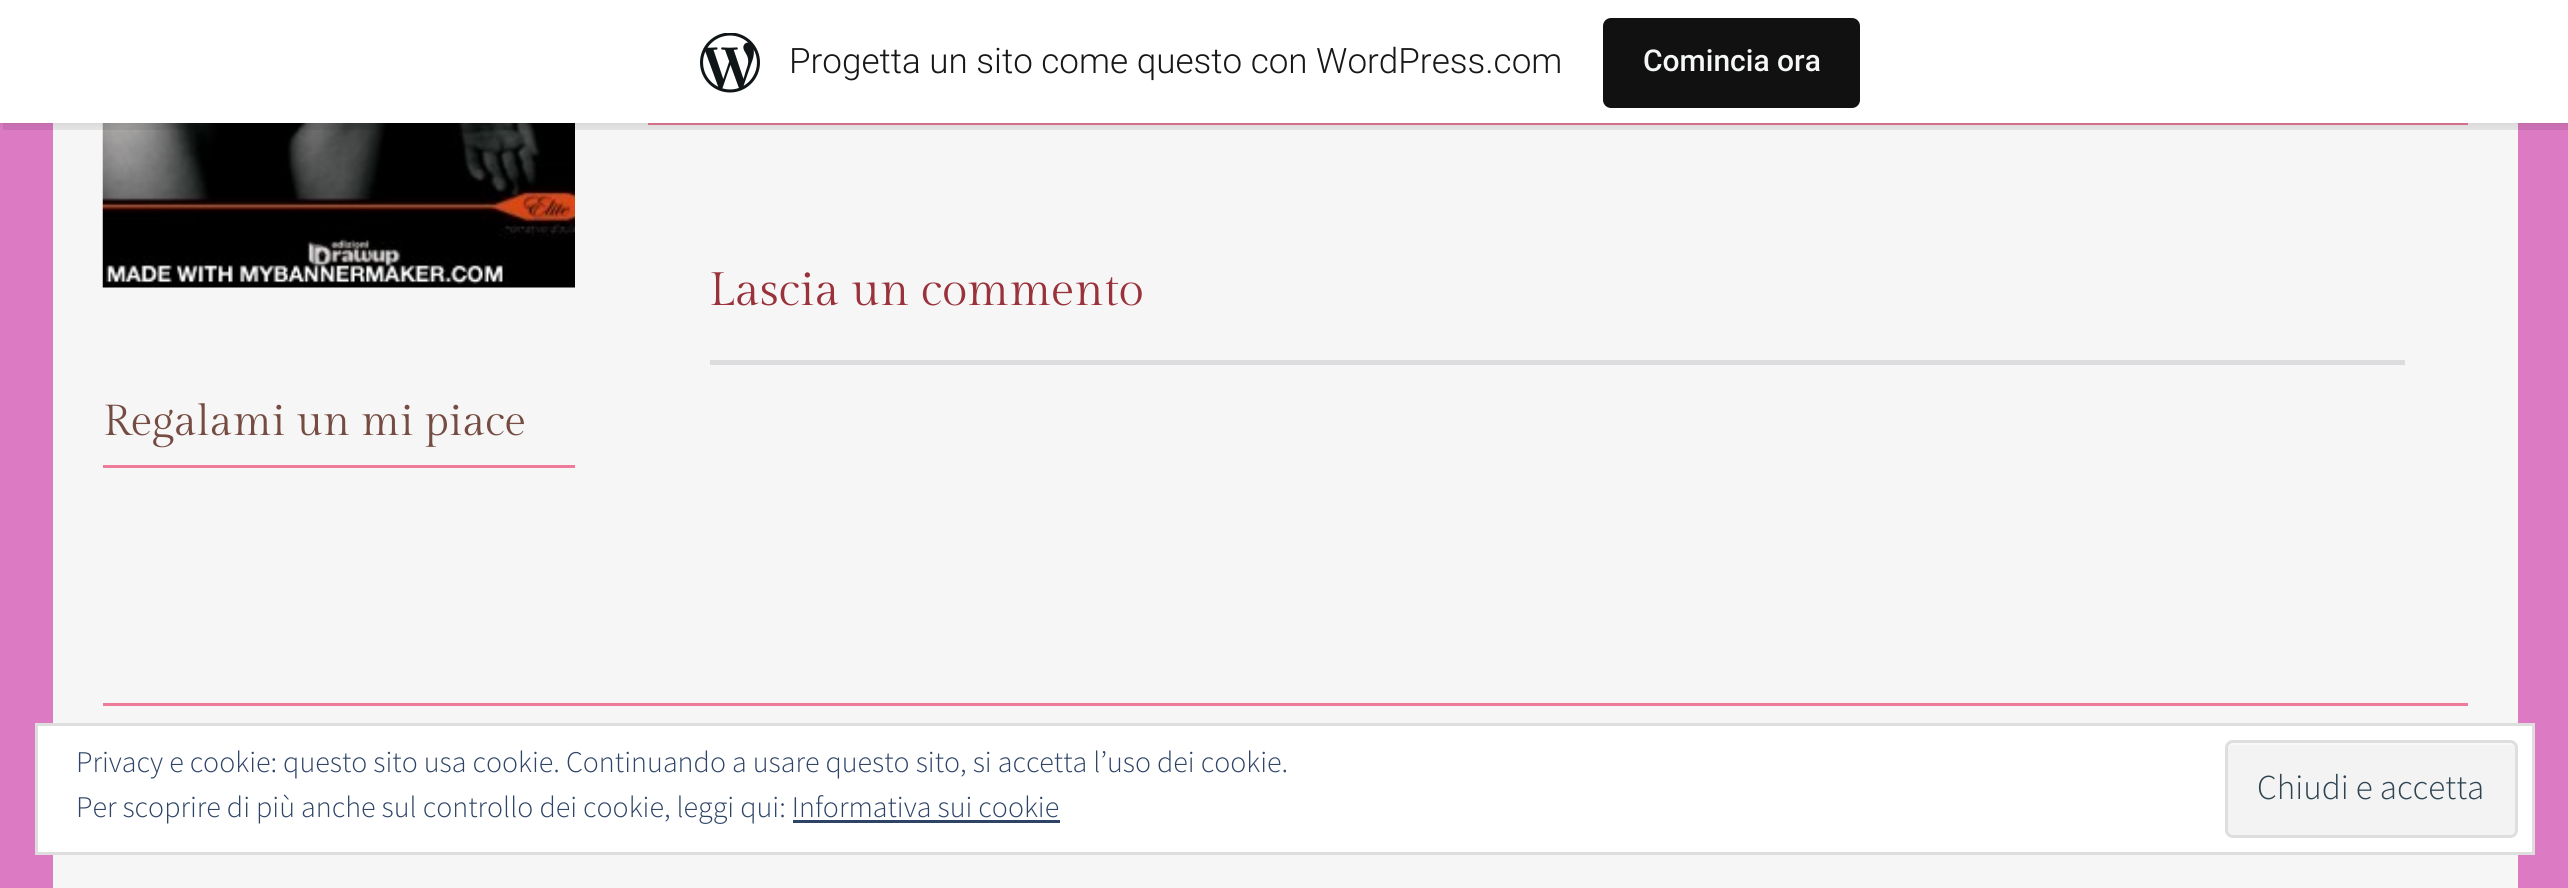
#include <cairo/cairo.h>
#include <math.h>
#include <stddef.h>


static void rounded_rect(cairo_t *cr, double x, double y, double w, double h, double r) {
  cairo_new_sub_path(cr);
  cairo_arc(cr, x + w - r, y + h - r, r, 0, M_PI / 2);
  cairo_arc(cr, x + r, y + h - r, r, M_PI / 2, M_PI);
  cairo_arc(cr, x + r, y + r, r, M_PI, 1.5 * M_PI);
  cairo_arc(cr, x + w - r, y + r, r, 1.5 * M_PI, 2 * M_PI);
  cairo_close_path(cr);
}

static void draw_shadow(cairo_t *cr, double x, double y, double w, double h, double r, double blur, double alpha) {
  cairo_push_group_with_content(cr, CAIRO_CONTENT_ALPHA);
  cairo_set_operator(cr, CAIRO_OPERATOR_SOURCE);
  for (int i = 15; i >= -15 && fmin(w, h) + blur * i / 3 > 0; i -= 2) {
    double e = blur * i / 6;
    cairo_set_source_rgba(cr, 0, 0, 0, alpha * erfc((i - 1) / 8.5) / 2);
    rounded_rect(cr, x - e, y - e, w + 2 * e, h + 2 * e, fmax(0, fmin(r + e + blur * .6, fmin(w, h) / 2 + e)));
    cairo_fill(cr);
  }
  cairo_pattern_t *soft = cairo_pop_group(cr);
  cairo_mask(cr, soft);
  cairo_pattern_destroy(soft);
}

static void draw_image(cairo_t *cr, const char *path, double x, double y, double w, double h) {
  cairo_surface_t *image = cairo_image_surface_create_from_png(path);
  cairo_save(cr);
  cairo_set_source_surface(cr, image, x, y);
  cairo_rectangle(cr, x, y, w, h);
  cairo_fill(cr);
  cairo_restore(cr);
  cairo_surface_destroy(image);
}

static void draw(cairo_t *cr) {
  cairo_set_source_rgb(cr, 221 / 255.0, 122 / 255.0, 196 / 255.0);
  cairo_paint(cr);
  cairo_set_source_rgb(cr, 246 / 255.0, 246 / 255.0, 246 / 255.0);
  cairo_rectangle(cr, 53, 123, 2465, 765);
  cairo_fill(cr);
  cairo_set_source_rgb(cr, 238 / 255.0, 123 / 255.0, 154 / 255.0);
  cairo_rectangle(cr, 648, 123, 1820, 2);
  cairo_fill(cr);
  draw_image(cr, "images/2.png", 102, 123, 473, 165);
  cairo_set_source_rgb(cr, 0, 0, 0);
  draw_shadow(cr, 0, 3, 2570, 122, 0, 2.5, 0.05);
  cairo_set_source_rgba(cr, 0, 0, 0, 0.08);
  cairo_new_path(cr);
  cairo_move_to(cr, 3, 122);
  cairo_line_to(cr, 3, 130);
  cairo_line_to(cr, 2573, 130);
  cairo_line_to(cr, 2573, 8);
  cairo_line_to(cr, 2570, 8);
  cairo_line_to(cr, 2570, 122);
  cairo_close_path(cr);
  cairo_fill(cr);
  cairo_set_source_rgb(cr, 1, 1, 1);
  cairo_rectangle(cr, 0, 0, 2568, 123);
  cairo_fill(cr);
  draw_image(cr, "images/1.png", 700, 33, 60, 60);
  cairo_set_source_rgb(cr, 17 / 255.0, 17 / 255.0, 17 / 255.0);
  rounded_rect(cr, 1603, 18, 257, 90, 8);
  cairo_fill(cr);
  cairo_set_source_rgb(cr, 220 / 255.0, 220 / 255.0, 222 / 255.0);
  cairo_rectangle(cr, 710, 360, 1695, 5);
  cairo_fill(cr);
  cairo_set_source_rgb(cr, 238 / 255.0, 123 / 255.0, 154 / 255.0);
  cairo_rectangle(cr, 103, 465, 472, 3);
  cairo_fill(cr);
  cairo_rectangle(cr, 103, 703, 2365, 3);
  cairo_fill(cr);
  cairo_set_source_rgb(cr, 1, 1, 1);
  cairo_rectangle(cr, 36.5, 724.5, 2497, 129);
  cairo_fill_preserve(cr);
  cairo_set_source_rgb(cr, 222 / 255.0, 222 / 255.0, 222 / 255.0);
  cairo_set_line_width(cr, 3);
  cairo_stroke(cr);
  cairo_set_source_rgb(cr, 243 / 255.0, 243 / 255.0, 243 / 255.0);
  rounded_rect(cr, 2225, 740, 293, 98, 8);
  cairo_fill(cr);
  cairo_set_source_rgb(cr, 249 / 255.0, 249 / 255.0, 249 / 255.0);
  cairo_new_path(cr);
  cairo_move_to(cr, 2232, 745);
  cairo_line_to(cr, 2510, 745);
  cairo_curve_to(cr, 2513, 745, 2515, 747, 2515, 750);
  cairo_curve_to(cr, 2515, 747, 2514, 743, 2510, 743);
  cairo_line_to(cr, 2232, 743);
  cairo_curve_to(cr, 2228, 744, 2228, 747, 2228, 750);
  cairo_curve_to(cr, 2228, 747, 2230, 745, 2232, 745);
  cairo_close_path(cr);
  cairo_fill(cr);
  rounded_rect(cr, 2226.5, 741.5, 290, 95, 6.5);
  cairo_set_source_rgb(cr, 222 / 255.0, 222 / 255.0, 222 / 255.0);
  cairo_stroke(cr);
  cairo_set_source_rgb(cr, 46 / 255.0, 68 / 255.0, 103 / 255.0);
  cairo_rectangle(cr, 793, 820, 267, 3);
  cairo_fill(cr);
  cairo_select_font_face(cr, "Roboto Light", CAIRO_FONT_SLANT_NORMAL, CAIRO_FONT_WEIGHT_NORMAL);
  cairo_set_font_size(cr, 35);
  cairo_set_source_rgb(cr, 23 / 255.0, 23 / 255.0, 23 / 255.0);
  cairo_move_to(cr, 789, 73);
  cairo_show_text(cr, "Progetta un sito come questo con WordPress.com");
  cairo_select_font_face(cr, "Roboto Medium", CAIRO_FONT_SLANT_NORMAL, CAIRO_FONT_WEIGHT_NORMAL);
  cairo_set_font_size(cr, 30);
  cairo_set_source_rgb(cr, 246 / 255.0, 247 / 255.0, 247 / 255.0);
  cairo_move_to(cr, 1643, 71);
  cairo_show_text(cr, "Comincia ora");
  cairo_select_font_face(cr, "Gilda Display", CAIRO_FONT_SLANT_NORMAL, CAIRO_FONT_WEIGHT_NORMAL);
  cairo_set_font_size(cr, 46.75);
  cairo_set_source_rgb(cr, 153 / 255.0, 50 / 255.0, 59 / 255.0);
  cairo_move_to(cr, 709, 305);
  cairo_show_text(cr, "Lascia un commento");
  cairo_set_font_size(cr, 43.25);
  cairo_set_source_rgb(cr, 117 / 255.0, 75 / 255.0, 66 / 255.0);
  cairo_move_to(cr, 103, 435);
  cairo_show_text(cr, "Regalami un mi piace");
  cairo_select_font_face(cr, "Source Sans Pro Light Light", CAIRO_FONT_SLANT_NORMAL, CAIRO_FONT_WEIGHT_NORMAL);
  cairo_set_font_size(cr, 30);
  cairo_set_source_rgb(cr, 46 / 255.0, 68 / 255.0, 103 / 255.0);
  cairo_move_to(cr, 76, 772);
  cairo_show_text(cr, "Privacy e cookie: questo sito usa cookie. Continuando a usare questo sito, si accetta l’uso dei cookie.");
  cairo_set_font_size(cr, 35);
  cairo_set_source_rgb(cr, 46 / 255.0, 68 / 255.0, 83 / 255.0);
  cairo_move_to(cr, 2257, 799);
  cairo_show_text(cr, "Chiudi e accetta");
  cairo_set_font_size(cr, 30);
  cairo_set_source_rgb(cr, 46 / 255.0, 68 / 255.0, 103 / 255.0);
  cairo_move_to(cr, 76, 817);
  cairo_show_text(cr, "Per scoprire di più anche sul controllo dei cookie, leggi qui: Informativa sui cookie");
}

int main(void) {
  cairo_surface_t *surface = cairo_image_surface_create(CAIRO_FORMAT_RGB24, 2568, 888);
  cairo_t *cr = cairo_create(surface);
  cairo_font_options_t *options = cairo_font_options_create();
  cairo_font_options_set_hint_metrics(options, CAIRO_HINT_METRICS_OFF);
  cairo_font_options_set_hint_style(options, CAIRO_HINT_STYLE_NONE);
  cairo_set_font_options(cr, options);
  cairo_set_miter_limit(cr, 4);
  draw(cr);
  cairo_surface_write_to_png(surface, "out.png");
  cairo_font_options_destroy(options);
  cairo_destroy(cr);
  cairo_surface_destroy(surface);
  return 0;
}
